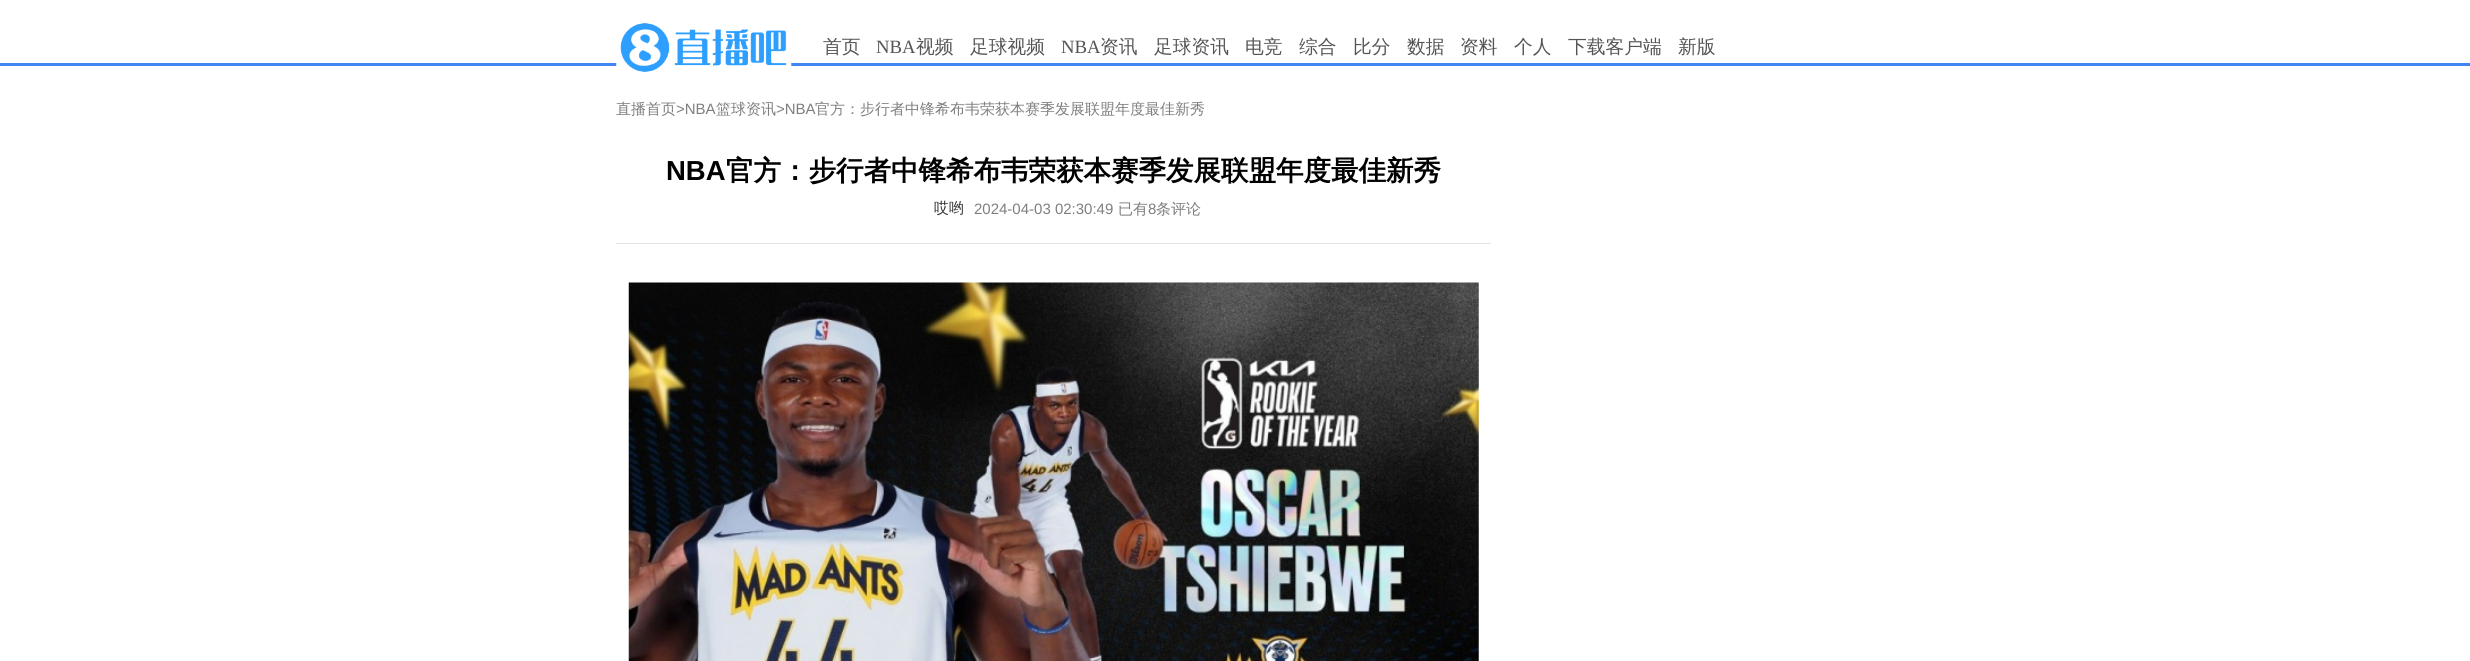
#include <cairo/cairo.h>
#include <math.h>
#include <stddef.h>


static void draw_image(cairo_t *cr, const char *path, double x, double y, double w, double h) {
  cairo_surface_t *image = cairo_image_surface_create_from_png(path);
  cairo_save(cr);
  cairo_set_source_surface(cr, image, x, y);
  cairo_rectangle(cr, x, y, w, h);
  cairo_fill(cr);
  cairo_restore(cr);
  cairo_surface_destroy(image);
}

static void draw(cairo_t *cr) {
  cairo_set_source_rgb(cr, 1, 1, 1);
  cairo_paint(cr);
  cairo_set_source_rgb(cr, 65 / 255.0, 132 / 255.0, 243 / 255.0);
  cairo_rectangle(cr, 0, 63, 2470, 3);
  cairo_fill(cr);
  draw_image(cr, "images/1.png", 616, 23, 176, 49);
  cairo_set_source_rgb(cr, 229 / 255.0, 229 / 255.0, 229 / 255.0);
  cairo_rectangle(cr, 616, 243, 875, 1);
  cairo_fill(cr);
  draw_image(cr, "images/2.png", 628, 282, 851, 379);
  cairo_select_font_face(cr, "WenQuanYi Zen Hei Medium", CAIRO_FONT_SLANT_NORMAL, CAIRO_FONT_WEIGHT_NORMAL);
  cairo_set_font_size(cr, 18.75);
  cairo_set_source_rgb(cr, 85 / 255.0, 85 / 255.0, 85 / 255.0);
  cairo_move_to(cr, 823, 53);
  cairo_show_text(cr, "首页");
  cairo_select_font_face(cr, "Liberation Serif", CAIRO_FONT_SLANT_NORMAL, CAIRO_FONT_WEIGHT_NORMAL);
  cairo_move_to(cr, 876, 53);
  cairo_show_text(cr, "NBA");
  cairo_select_font_face(cr, "WenQuanYi Zen Hei Medium", CAIRO_FONT_SLANT_NORMAL, CAIRO_FONT_WEIGHT_NORMAL);
  cairo_move_to(cr, 916, 53);
  cairo_show_text(cr, "视频");
  cairo_move_to(cr, 970, 53);
  cairo_show_text(cr, "足球视频");
  cairo_select_font_face(cr, "Liberation Serif", CAIRO_FONT_SLANT_NORMAL, CAIRO_FONT_WEIGHT_NORMAL);
  cairo_move_to(cr, 1061, 53);
  cairo_show_text(cr, "NBA");
  cairo_select_font_face(cr, "WenQuanYi Zen Hei Medium", CAIRO_FONT_SLANT_NORMAL, CAIRO_FONT_WEIGHT_NORMAL);
  cairo_move_to(cr, 1100, 53);
  cairo_show_text(cr, "资讯");
  cairo_move_to(cr, 1154, 53);
  cairo_show_text(cr, "足球资讯");
  cairo_move_to(cr, 1245, 53);
  cairo_show_text(cr, "电竞");
  cairo_move_to(cr, 1299, 53);
  cairo_show_text(cr, "综合");
  cairo_move_to(cr, 1353, 53);
  cairo_show_text(cr, "比分");
  cairo_move_to(cr, 1407, 53);
  cairo_show_text(cr, "数据");
  cairo_move_to(cr, 1460, 53);
  cairo_show_text(cr, "资料");
  cairo_move_to(cr, 1514, 53);
  cairo_show_text(cr, "个人");
  cairo_move_to(cr, 1568, 53);
  cairo_show_text(cr, "下载客户端");
  cairo_move_to(cr, 1678, 53);
  cairo_show_text(cr, "新版");
  cairo_set_font_size(cr, 15);
  cairo_set_source_rgb(cr, 126 / 255.0, 126 / 255.0, 126 / 255.0);
  cairo_move_to(cr, 616, 114);
  cairo_show_text(cr, "直播首页");
  cairo_select_font_face(cr, "Liberation Sans", CAIRO_FONT_SLANT_NORMAL, CAIRO_FONT_WEIGHT_NORMAL);
  cairo_move_to(cr, 676, 114);
  cairo_show_text(cr, ">NBA");
  cairo_select_font_face(cr, "WenQuanYi Zen Hei Medium", CAIRO_FONT_SLANT_NORMAL, CAIRO_FONT_WEIGHT_NORMAL);
  cairo_move_to(cr, 716, 114);
  cairo_show_text(cr, "篮球资讯");
  cairo_select_font_face(cr, "Liberation Sans", CAIRO_FONT_SLANT_NORMAL, CAIRO_FONT_WEIGHT_NORMAL);
  cairo_move_to(cr, 776, 114);
  cairo_show_text(cr, ">NBA");
  cairo_select_font_face(cr, "WenQuanYi Zen Hei Medium", CAIRO_FONT_SLANT_NORMAL, CAIRO_FONT_WEIGHT_NORMAL);
  cairo_move_to(cr, 815, 114);
  cairo_show_text(cr, "官方：步行者中锋希布韦荣获本赛季发展联盟年度最佳新秀");
  cairo_select_font_face(cr, "Liberation Sans", CAIRO_FONT_SLANT_NORMAL, CAIRO_FONT_WEIGHT_BOLD);
  cairo_set_font_size(cr, 27.5);
  cairo_set_source_rgb(cr, 0, 0, 0);
  cairo_move_to(cr, 666, 180);
  cairo_show_text(cr, "NBA");
  cairo_select_font_face(cr, "WenQuanYi Zen Hei", CAIRO_FONT_SLANT_NORMAL, CAIRO_FONT_WEIGHT_BOLD);
  cairo_move_to(cr, 726, 180);
  cairo_show_text(cr, "官方：步行者中锋希布韦荣获本赛季发展联盟年度最佳新秀");
  cairo_select_font_face(cr, "WenQuanYi Zen Hei Medium", CAIRO_FONT_SLANT_NORMAL, CAIRO_FONT_WEIGHT_NORMAL);
  cairo_set_font_size(cr, 15);
  cairo_set_source_rgb(cr, 51 / 255.0, 51 / 255.0, 51 / 255.0);
  cairo_move_to(cr, 934, 213);
  cairo_show_text(cr, "哎哟");
  cairo_select_font_face(cr, "Liberation Sans", CAIRO_FONT_SLANT_NORMAL, CAIRO_FONT_WEIGHT_NORMAL);
  cairo_set_source_rgb(cr, 126 / 255.0, 126 / 255.0, 126 / 255.0);
  cairo_move_to(cr, 974, 214);
  cairo_show_text(cr, "2024-04-03 02:30:49");
  cairo_select_font_face(cr, "WenQuanYi Zen Hei Medium", CAIRO_FONT_SLANT_NORMAL, CAIRO_FONT_WEIGHT_NORMAL);
  cairo_move_to(cr, 1118, 214);
  cairo_show_text(cr, "已有");
  cairo_select_font_face(cr, "Liberation Sans", CAIRO_FONT_SLANT_NORMAL, CAIRO_FONT_WEIGHT_NORMAL);
  cairo_move_to(cr, 1148, 214);
  cairo_show_text(cr, "8");
  cairo_select_font_face(cr, "WenQuanYi Zen Hei Medium", CAIRO_FONT_SLANT_NORMAL, CAIRO_FONT_WEIGHT_NORMAL);
  cairo_move_to(cr, 1156, 214);
  cairo_show_text(cr, "条评论");
}

int main(void) {
  cairo_surface_t *surface = cairo_image_surface_create(CAIRO_FORMAT_RGB24, 2470, 661);
  cairo_t *cr = cairo_create(surface);
  cairo_font_options_t *options = cairo_font_options_create();
  cairo_font_options_set_hint_metrics(options, CAIRO_HINT_METRICS_OFF);
  cairo_font_options_set_hint_style(options, CAIRO_HINT_STYLE_NONE);
  cairo_set_font_options(cr, options);
  cairo_set_miter_limit(cr, 4);
  draw(cr);
  cairo_surface_write_to_png(surface, "out.png");
  cairo_font_options_destroy(options);
  cairo_destroy(cr);
  cairo_surface_destroy(surface);
  return 0;
}
